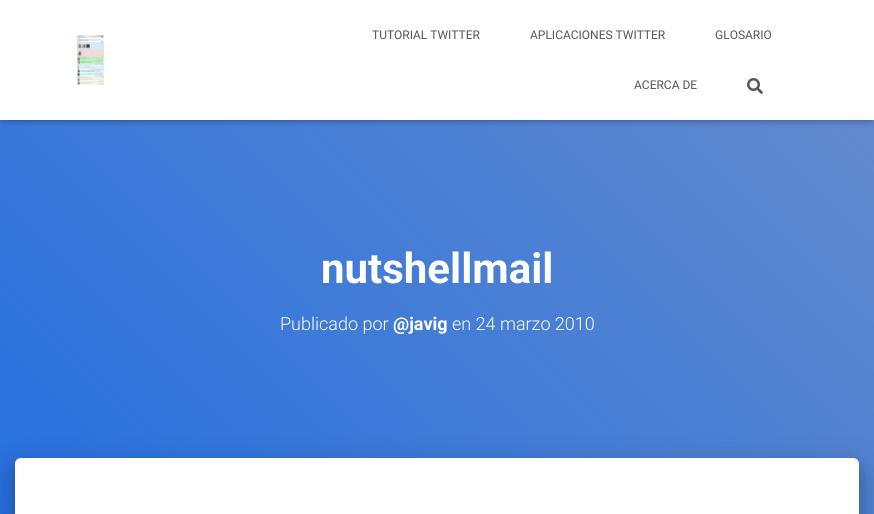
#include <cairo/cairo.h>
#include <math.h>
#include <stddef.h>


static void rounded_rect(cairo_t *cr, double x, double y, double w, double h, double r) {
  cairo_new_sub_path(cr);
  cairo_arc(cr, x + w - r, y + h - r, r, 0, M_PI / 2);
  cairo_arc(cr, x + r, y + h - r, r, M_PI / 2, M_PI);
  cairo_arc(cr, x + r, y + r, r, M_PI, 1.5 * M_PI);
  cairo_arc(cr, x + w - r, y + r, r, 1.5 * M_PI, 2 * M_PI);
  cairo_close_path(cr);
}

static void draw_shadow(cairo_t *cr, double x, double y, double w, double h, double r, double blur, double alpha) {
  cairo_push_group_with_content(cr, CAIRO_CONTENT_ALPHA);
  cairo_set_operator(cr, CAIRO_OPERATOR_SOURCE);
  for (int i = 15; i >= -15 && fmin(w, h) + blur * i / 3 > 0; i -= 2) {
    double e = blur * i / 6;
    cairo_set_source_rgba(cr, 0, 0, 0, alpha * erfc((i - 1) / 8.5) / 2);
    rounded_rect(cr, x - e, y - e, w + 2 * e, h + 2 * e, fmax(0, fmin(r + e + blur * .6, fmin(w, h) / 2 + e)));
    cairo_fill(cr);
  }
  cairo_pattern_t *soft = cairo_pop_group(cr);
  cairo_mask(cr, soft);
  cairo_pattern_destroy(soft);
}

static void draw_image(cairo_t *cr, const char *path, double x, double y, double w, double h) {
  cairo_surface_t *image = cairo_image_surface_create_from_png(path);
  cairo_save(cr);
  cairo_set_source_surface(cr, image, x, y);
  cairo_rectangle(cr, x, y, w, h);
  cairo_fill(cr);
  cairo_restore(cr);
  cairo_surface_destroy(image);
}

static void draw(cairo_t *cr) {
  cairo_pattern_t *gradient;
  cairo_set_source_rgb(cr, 1, 1, 1);
  cairo_paint(cr);
  gradient = cairo_pattern_create_linear(89, 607, 785, -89);
  cairo_pattern_add_color_stop_rgba(gradient, 0, 38 / 255.0, 112 / 255.0, 224 / 255.0, 1);
  cairo_pattern_add_color_stop_rgba(gradient, 1, 104 / 255.0, 140 / 255.0, 203 / 255.0, 1);
  cairo_set_source(cr, gradient);
  cairo_pattern_destroy(gradient);
  cairo_rectangle(cr, 0, 120, 874, 394);
  cairo_fill(cr);
  cairo_set_source_rgb(cr, 0, 0, 0);
  draw_shadow(cr, 2, 6, 870, 116, 0, 2.5, 0.1);
  draw_shadow(cr, 0, 1, 874, 120, 0, 5, 0.12);
  draw_shadow(cr, 6, 7, 862, 108, 0, 5, 0.42);
  cairo_set_source_rgb(cr, 1, 1, 1);
  cairo_rectangle(cr, 0, 0, 874, 120);
  cairo_fill(cr);
  draw_image(cr, "images/1.png", 77, 35, 27, 50);
  draw_image(cr, "images/2.png", 747, 78, 16, 16);
  cairo_set_source_rgb(cr, 0, 0, 0);
  draw_shadow(cr, 20, 471, 834, 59, 1, 5, 0.2);
  draw_shadow(cr, 10, 459, 854, 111, 11, 15, 0.12);
  draw_shadow(cr, 13, 472, 848, 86, 8, 12, 0.14);
  cairo_set_source_rgb(cr, 1, 1, 1);
  cairo_new_path(cr);
  cairo_move_to(cr, 21, 458);
  cairo_line_to(cr, 853, 458);
  cairo_curve_to(cr, 856.5, 458, 859, 460.5, 859, 464);
  cairo_line_to(cr, 859, 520);
  cairo_line_to(cr, 15, 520);
  cairo_line_to(cr, 15, 464);
  cairo_curve_to(cr, 15, 460.5, 17.5, 458, 21, 458);
  cairo_close_path(cr);
  cairo_fill(cr);
  cairo_select_font_face(cr, "Roboto", CAIRO_FONT_SLANT_NORMAL, CAIRO_FONT_WEIGHT_NORMAL);
  cairo_set_font_size(cr, 12);
  cairo_set_source_rgb(cr, 85 / 255.0, 85 / 255.0, 85 / 255.0);
  cairo_move_to(cr, 372, 39);
  cairo_show_text(cr, "TUTORIAL TWITTER");
  cairo_move_to(cr, 530, 39);
  cairo_show_text(cr, "APLICACIONES TWITTER");
  cairo_move_to(cr, 715, 39);
  cairo_show_text(cr, "GLOSARIO");
  cairo_move_to(cr, 634, 89);
  cairo_show_text(cr, "ACERCA DE");
  cairo_select_font_face(cr, "Roboto", CAIRO_FONT_SLANT_NORMAL, CAIRO_FONT_WEIGHT_BOLD);
  cairo_set_font_size(cr, 42);
  cairo_set_source_rgb(cr, 1, 1, 1);
  cairo_move_to(cr, 321, 283);
  cairo_show_text(cr, "nutshellmail");
  cairo_select_font_face(cr, "Roboto Light", CAIRO_FONT_SLANT_NORMAL, CAIRO_FONT_WEIGHT_NORMAL);
  cairo_set_font_size(cr, 18);
  cairo_move_to(cr, 280, 330);
  cairo_show_text(cr, "Publicado por");
  cairo_select_font_face(cr, "Roboto", CAIRO_FONT_SLANT_NORMAL, CAIRO_FONT_WEIGHT_BOLD);
  cairo_move_to(cr, 393, 330);
  cairo_show_text(cr, "@javig");
  cairo_select_font_face(cr, "Roboto Light", CAIRO_FONT_SLANT_NORMAL, CAIRO_FONT_WEIGHT_NORMAL);
  cairo_move_to(cr, 452, 330);
  cairo_show_text(cr, "en 24 marzo 2010");
}

int main(void) {
  cairo_surface_t *surface = cairo_image_surface_create(CAIRO_FORMAT_RGB24, 874, 514);
  cairo_t *cr = cairo_create(surface);
  cairo_font_options_t *options = cairo_font_options_create();
  cairo_font_options_set_hint_metrics(options, CAIRO_HINT_METRICS_OFF);
  cairo_font_options_set_hint_style(options, CAIRO_HINT_STYLE_NONE);
  cairo_set_font_options(cr, options);
  cairo_set_miter_limit(cr, 4);
  draw(cr);
  cairo_surface_write_to_png(surface, "out.png");
  cairo_font_options_destroy(options);
  cairo_destroy(cr);
  cairo_surface_destroy(surface);
  return 0;
}
